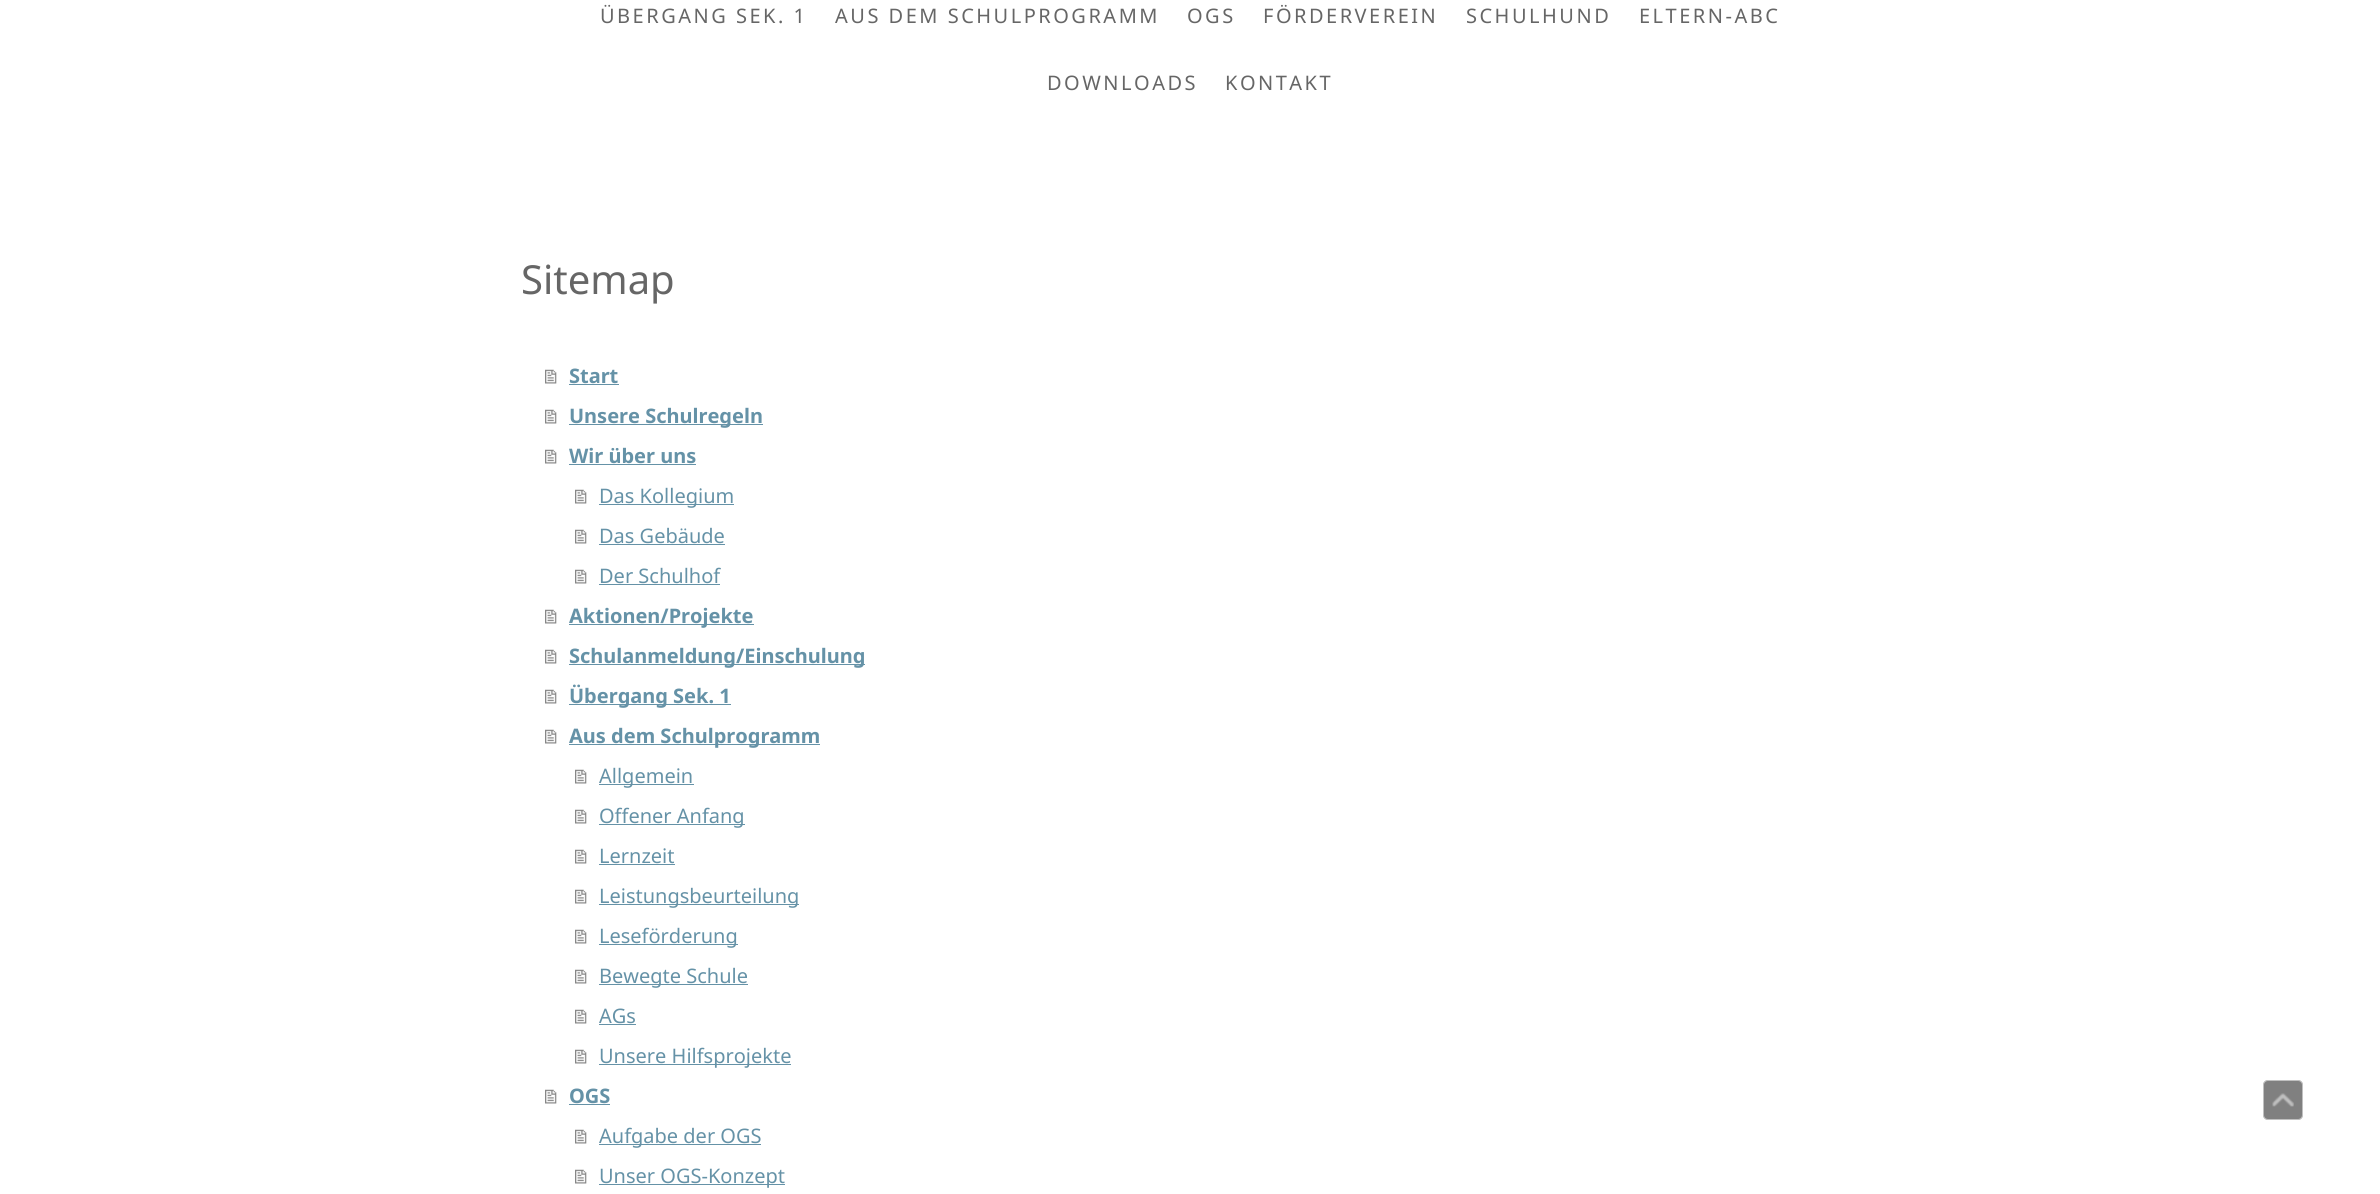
#include <cairo/cairo.h>
#include <math.h>
#include <stddef.h>


static void draw_spaced(cairo_t *cr, double x, double y, const char *s, double letter, double word) {
  cairo_move_to(cr, x, y);
  while (*s) {
    char ch[5] = {0};
    int n = 0;
    do ch[n++] = *s++; while ((*s & 0xC0) == 0x80);
    cairo_show_text(cr, ch);
    cairo_rel_move_to(cr, letter + word * (*ch == ' '), 0);
  }
}

static void rounded_rect(cairo_t *cr, double x, double y, double w, double h, double r) {
  cairo_new_sub_path(cr);
  cairo_arc(cr, x + w - r, y + h - r, r, 0, M_PI / 2);
  cairo_arc(cr, x + r, y + h - r, r, M_PI / 2, M_PI);
  cairo_arc(cr, x + r, y + r, r, M_PI, 1.5 * M_PI);
  cairo_arc(cr, x + w - r, y + r, r, 1.5 * M_PI, 2 * M_PI);
  cairo_close_path(cr);
}

static void draw_image(cairo_t *cr, const char *path, double x, double y, double w, double h) {
  cairo_surface_t *image = cairo_image_surface_create_from_png(path);
  cairo_save(cr);
  cairo_set_source_surface(cr, image, x, y);
  cairo_rectangle(cr, x, y, w, h);
  cairo_fill(cr);
  cairo_restore(cr);
  cairo_surface_destroy(image);
}

static void draw(cairo_t *cr) {
  cairo_set_source_rgb(cr, 1, 1, 1);
  cairo_paint(cr);
  draw_image(cr, "images/1.png", 545, 369, 12, 15);
  cairo_set_source_rgb(cr, 101 / 255.0, 146 / 255.0, 167 / 255.0);
  cairo_rectangle(cr, 569, 384, 50, 1);
  cairo_fill(cr);
  draw_image(cr, "images/1.png", 545, 409, 12, 15);
  cairo_rectangle(cr, 569, 424, 194, 1);
  cairo_fill(cr);
  draw_image(cr, "images/1.png", 545, 449, 12, 15);
  cairo_rectangle(cr, 569, 464, 127, 1);
  cairo_fill(cr);
  draw_image(cr, "images/1.png", 575, 489, 12, 15);
  cairo_rectangle(cr, 599, 504, 135, 1);
  cairo_fill(cr);
  draw_image(cr, "images/1.png", 575, 529, 12, 15);
  cairo_rectangle(cr, 599, 544, 126, 1);
  cairo_fill(cr);
  draw_image(cr, "images/1.png", 575, 569, 12, 15);
  cairo_rectangle(cr, 599, 584, 121, 1);
  cairo_fill(cr);
  draw_image(cr, "images/1.png", 545, 609, 12, 15);
  cairo_rectangle(cr, 569, 624, 185, 1);
  cairo_fill(cr);
  draw_image(cr, "images/1.png", 545, 649, 12, 15);
  cairo_rectangle(cr, 569, 664, 296, 1);
  cairo_fill(cr);
  draw_image(cr, "images/1.png", 545, 689, 12, 15);
  cairo_rectangle(cr, 569, 704, 162, 1);
  cairo_fill(cr);
  draw_image(cr, "images/1.png", 545, 729, 12, 15);
  cairo_rectangle(cr, 569, 744, 251, 1);
  cairo_fill(cr);
  draw_image(cr, "images/1.png", 575, 769, 12, 15);
  cairo_rectangle(cr, 599, 784, 95, 1);
  cairo_fill(cr);
  draw_image(cr, "images/1.png", 575, 809, 12, 15);
  cairo_rectangle(cr, 599, 824, 146, 1);
  cairo_fill(cr);
  draw_image(cr, "images/1.png", 575, 849, 12, 15);
  cairo_rectangle(cr, 599, 864, 76, 1);
  cairo_fill(cr);
  draw_image(cr, "images/1.png", 575, 889, 12, 15);
  cairo_rectangle(cr, 599, 904, 200, 1);
  cairo_fill(cr);
  draw_image(cr, "images/1.png", 575, 929, 12, 15);
  cairo_rectangle(cr, 599, 944, 139, 1);
  cairo_fill(cr);
  draw_image(cr, "images/1.png", 575, 969, 12, 15);
  cairo_rectangle(cr, 599, 984, 149, 1);
  cairo_fill(cr);
  draw_image(cr, "images/1.png", 575, 1009, 12, 15);
  cairo_rectangle(cr, 599, 1024, 37, 1);
  cairo_fill(cr);
  draw_image(cr, "images/1.png", 575, 1049, 12, 15);
  cairo_rectangle(cr, 599, 1064, 192, 1);
  cairo_fill(cr);
  draw_image(cr, "images/1.png", 545, 1089, 12, 15);
  cairo_rectangle(cr, 569, 1104, 41, 1);
  cairo_fill(cr);
  draw_image(cr, "images/1.png", 575, 1129, 12, 15);
  cairo_rectangle(cr, 599, 1144, 162, 1);
  cairo_fill(cr);
  draw_image(cr, "images/1.png", 575, 1169, 12, 15);
  cairo_rectangle(cr, 599, 1184, 186, 1);
  cairo_fill(cr);
  cairo_set_source_rgb(cr, 128 / 255.0, 128 / 255.0, 128 / 255.0);
  rounded_rect(cr, 2263, 1080, 40, 40, 5);
  cairo_fill(cr);
  rounded_rect(cr, 2263.5, 1080.5, 39, 39, 4.5);
  cairo_set_source_rgba(cr, 1, 1, 1, 0.5);
  cairo_set_line_width(cr, 1);
  cairo_stroke(cr);
  draw_image(cr, "images/2.png", 2272, 1093, 22, 14);
  cairo_select_font_face(cr, "Noto Sans", CAIRO_FONT_SLANT_NORMAL, CAIRO_FONT_WEIGHT_NORMAL);
  cairo_set_font_size(cr, 20);
  cairo_set_source_rgb(cr, 102 / 255.0, 102 / 255.0, 102 / 255.0);
  draw_spaced(cr, 600, 23, "ÜBERGANG SEK. 1", 2.5, 0);
  draw_spaced(cr, 835, 23, "AUS DEM SCHULPROGRAMM", 2.5, 0);
  draw_spaced(cr, 1187, 23, "OGS", 2.5, 0);
  draw_spaced(cr, 1263, 23, "FÖRDERVEREIN", 2.5, 0);
  draw_spaced(cr, 1466, 23, "SCHULHUND", 2.5, 0);
  draw_spaced(cr, 1639, 23, "ELTERN-ABC", 2.5, 0);
  draw_spaced(cr, 1047, 90, "DOWNLOADS", 2.5, 0);
  draw_spaced(cr, 1225, 90, "KONTAKT", 2.5, 0);
  cairo_set_font_size(cr, 40);
  cairo_move_to(cr, 521, 294);
  cairo_show_text(cr, "Sitemap");
  cairo_select_font_face(cr, "Noto Sans", CAIRO_FONT_SLANT_NORMAL, CAIRO_FONT_WEIGHT_BOLD);
  cairo_set_font_size(cr, 20);
  cairo_set_source_rgb(cr, 101 / 255.0, 146 / 255.0, 167 / 255.0);
  cairo_move_to(cr, 569, 383);
  cairo_show_text(cr, "Start");
  cairo_move_to(cr, 569, 423);
  cairo_show_text(cr, "Unsere Schulregeln");
  cairo_move_to(cr, 569, 463);
  cairo_show_text(cr, "Wir über uns");
  cairo_select_font_face(cr, "Noto Sans", CAIRO_FONT_SLANT_NORMAL, CAIRO_FONT_WEIGHT_NORMAL);
  cairo_move_to(cr, 599, 503);
  cairo_show_text(cr, "Das Kollegium");
  cairo_move_to(cr, 599, 543);
  cairo_show_text(cr, "Das Gebäude");
  cairo_move_to(cr, 599, 583);
  cairo_show_text(cr, "Der Schulhof");
  cairo_select_font_face(cr, "Noto Sans", CAIRO_FONT_SLANT_NORMAL, CAIRO_FONT_WEIGHT_BOLD);
  cairo_move_to(cr, 569, 623);
  cairo_show_text(cr, "Aktionen/Projekte");
  cairo_move_to(cr, 569, 663);
  cairo_show_text(cr, "Schulanmeldung/Einschulung");
  cairo_move_to(cr, 569, 703);
  cairo_show_text(cr, "Übergang Sek. 1");
  cairo_move_to(cr, 569, 743);
  cairo_show_text(cr, "Aus dem Schulprogramm");
  cairo_select_font_face(cr, "Noto Sans", CAIRO_FONT_SLANT_NORMAL, CAIRO_FONT_WEIGHT_NORMAL);
  cairo_move_to(cr, 599, 783);
  cairo_show_text(cr, "Allgemein");
  cairo_move_to(cr, 599, 823);
  cairo_show_text(cr, "Offener Anfang");
  cairo_move_to(cr, 599, 863);
  cairo_show_text(cr, "Lernzeit");
  cairo_move_to(cr, 599, 903);
  cairo_show_text(cr, "Leistungsbeurteilung");
  cairo_move_to(cr, 599, 943);
  cairo_show_text(cr, "Leseförderung");
  cairo_move_to(cr, 599, 983);
  cairo_show_text(cr, "Bewegte Schule");
  cairo_move_to(cr, 599, 1023);
  cairo_show_text(cr, "AGs");
  cairo_move_to(cr, 599, 1063);
  cairo_show_text(cr, "Unsere Hilfsprojekte");
  cairo_select_font_face(cr, "Noto Sans", CAIRO_FONT_SLANT_NORMAL, CAIRO_FONT_WEIGHT_BOLD);
  cairo_move_to(cr, 569, 1103);
  cairo_show_text(cr, "OGS");
  cairo_select_font_face(cr, "Noto Sans", CAIRO_FONT_SLANT_NORMAL, CAIRO_FONT_WEIGHT_NORMAL);
  cairo_move_to(cr, 599, 1143);
  cairo_show_text(cr, "Aufgabe der OGS");
  cairo_move_to(cr, 599, 1183);
  cairo_show_text(cr, "Unser OGS-Konzept");
}

int main(void) {
  cairo_surface_t *surface = cairo_image_surface_create(CAIRO_FORMAT_RGB24, 2380, 1194);
  cairo_t *cr = cairo_create(surface);
  cairo_font_options_t *options = cairo_font_options_create();
  cairo_font_options_set_hint_metrics(options, CAIRO_HINT_METRICS_OFF);
  cairo_font_options_set_hint_style(options, CAIRO_HINT_STYLE_NONE);
  cairo_set_font_options(cr, options);
  cairo_set_miter_limit(cr, 4);
  draw(cr);
  cairo_surface_write_to_png(surface, "out.png");
  cairo_font_options_destroy(options);
  cairo_destroy(cr);
  cairo_surface_destroy(surface);
  return 0;
}
